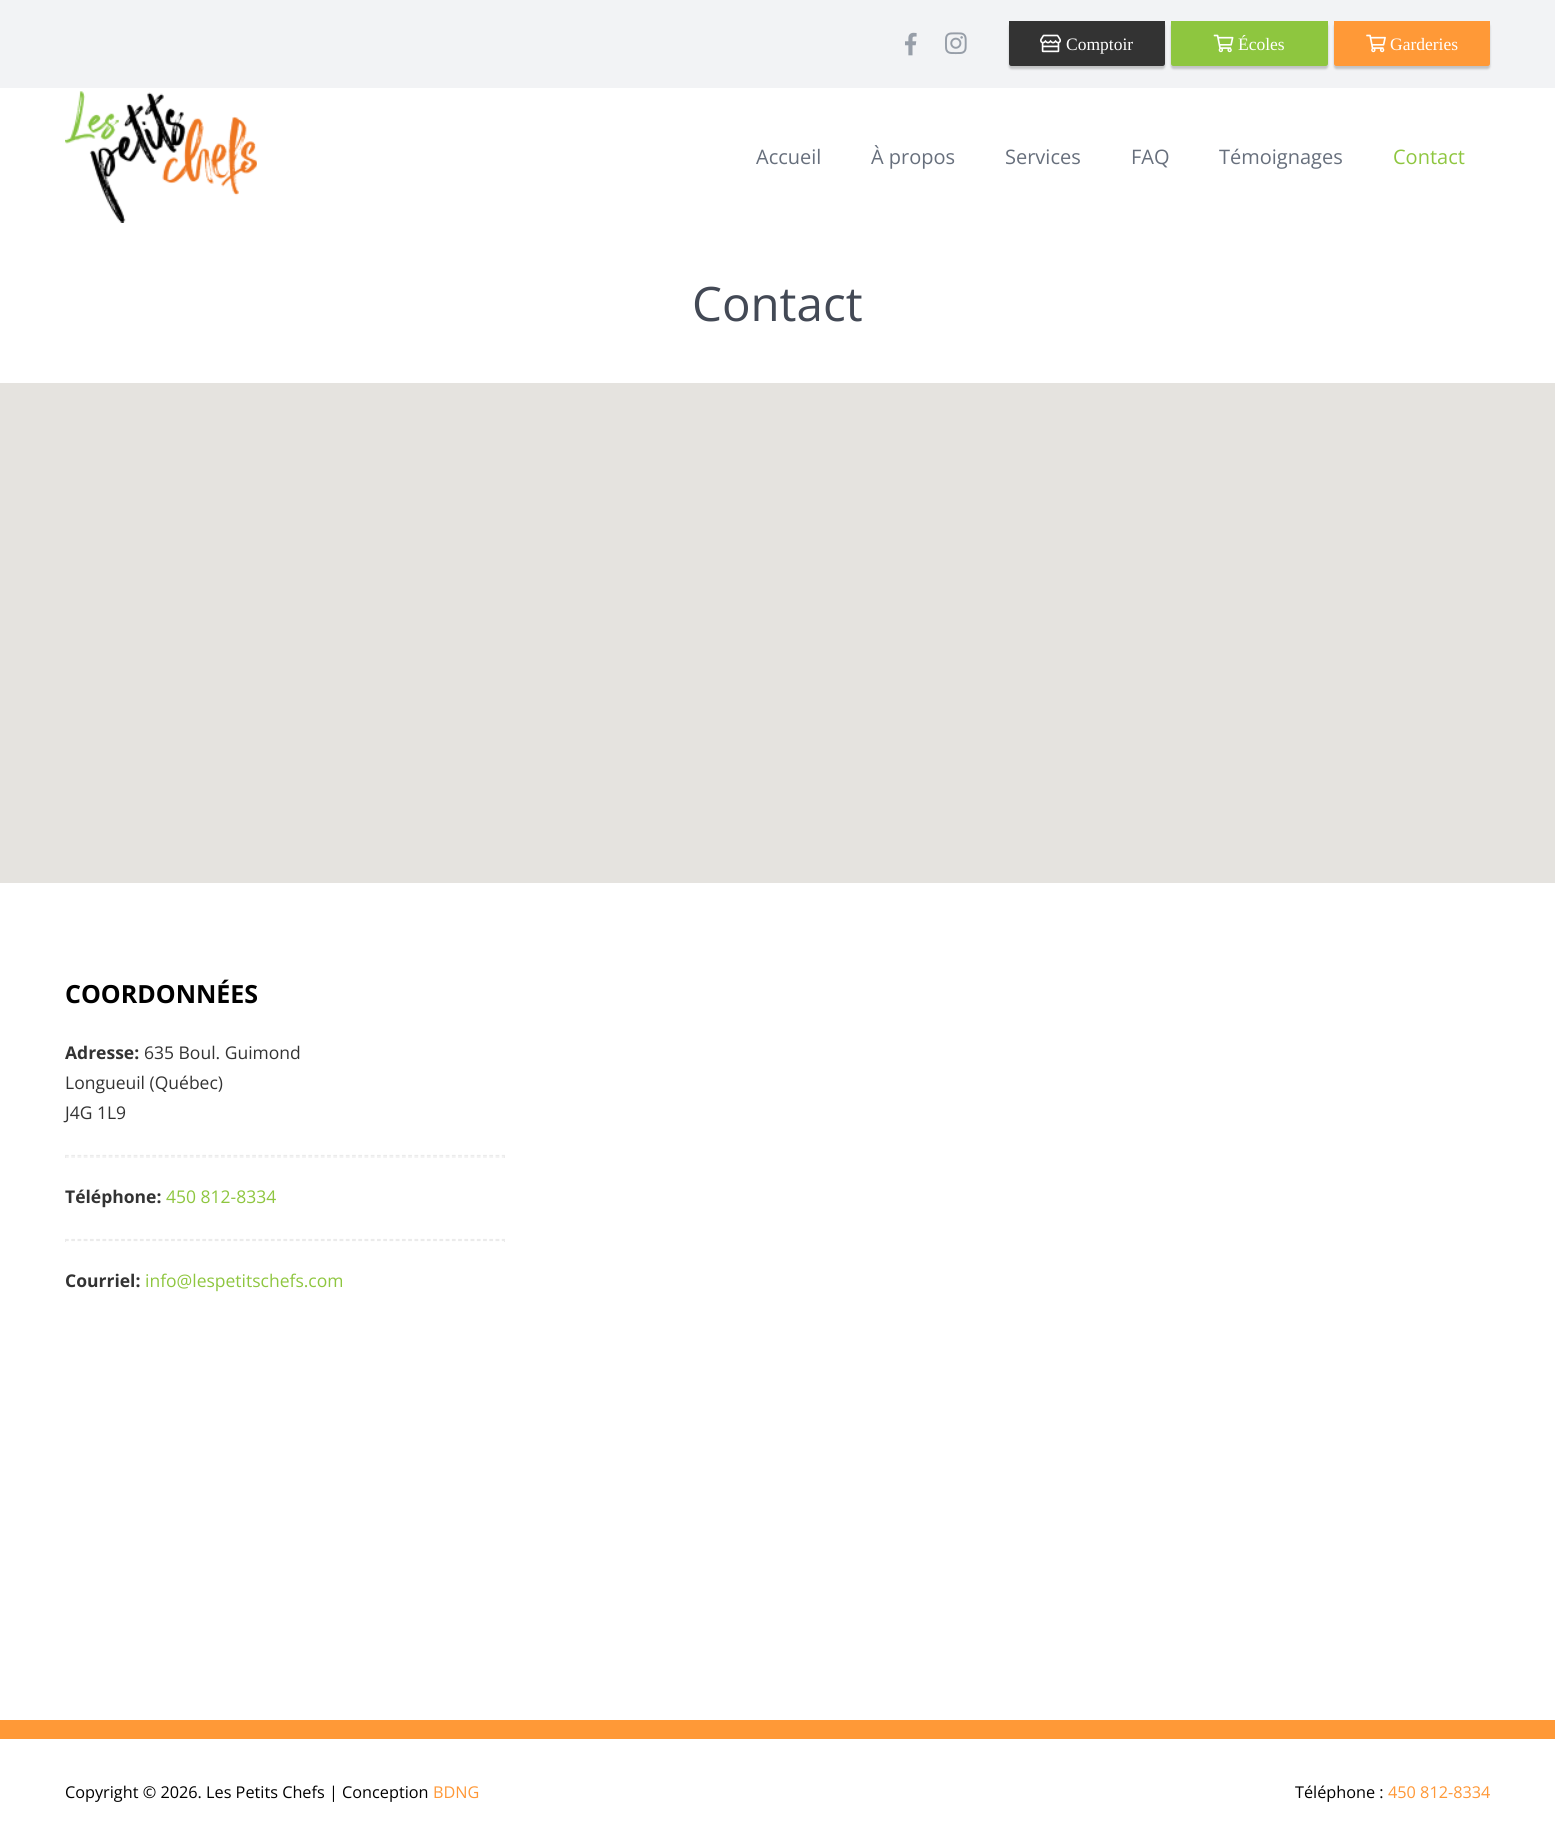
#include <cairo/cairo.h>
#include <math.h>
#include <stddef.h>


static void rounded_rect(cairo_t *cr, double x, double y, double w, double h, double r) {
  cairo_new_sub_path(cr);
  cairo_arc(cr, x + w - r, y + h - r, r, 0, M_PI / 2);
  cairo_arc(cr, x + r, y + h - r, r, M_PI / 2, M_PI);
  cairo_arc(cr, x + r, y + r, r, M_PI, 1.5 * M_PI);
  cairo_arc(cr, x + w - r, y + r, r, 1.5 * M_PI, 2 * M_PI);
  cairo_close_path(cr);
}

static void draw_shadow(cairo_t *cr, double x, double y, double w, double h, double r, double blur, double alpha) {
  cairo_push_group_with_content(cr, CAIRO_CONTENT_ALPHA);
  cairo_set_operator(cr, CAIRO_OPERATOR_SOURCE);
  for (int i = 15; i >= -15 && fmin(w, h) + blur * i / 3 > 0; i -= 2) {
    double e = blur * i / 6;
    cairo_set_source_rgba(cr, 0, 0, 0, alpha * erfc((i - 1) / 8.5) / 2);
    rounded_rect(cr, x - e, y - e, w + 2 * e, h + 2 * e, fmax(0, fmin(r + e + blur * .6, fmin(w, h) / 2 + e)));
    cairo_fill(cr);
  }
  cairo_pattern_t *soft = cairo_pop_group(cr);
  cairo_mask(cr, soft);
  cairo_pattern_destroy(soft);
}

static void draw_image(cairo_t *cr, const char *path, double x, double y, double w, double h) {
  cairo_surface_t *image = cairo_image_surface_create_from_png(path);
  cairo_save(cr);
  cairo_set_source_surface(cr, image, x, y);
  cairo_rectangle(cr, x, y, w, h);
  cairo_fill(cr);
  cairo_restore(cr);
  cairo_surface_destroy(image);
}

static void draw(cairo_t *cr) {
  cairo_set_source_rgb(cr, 1, 1, 1);
  cairo_paint(cr);
  cairo_set_source_rgb(cr, 242 / 255.0, 243 / 255.0, 245 / 255.0);
  cairo_rectangle(cr, 0, 0, 1555, 88);
  cairo_fill(cr);
  draw_image(cr, "images/1.png", 905, 32, 12, 24);
  draw_image(cr, "images/2.png", 945, 32, 22, 23);
  cairo_set_source_rgb(cr, 50 / 255.0, 50 / 255.0, 50 / 255.0);
  draw_shadow(cr, 1009, 24, 156, 45, 2.5, 1, 0.25);
  cairo_set_source_rgb(cr, 51 / 255.0, 51 / 255.0, 51 / 255.0);
  cairo_new_path(cr);
  cairo_move_to(cr, 1009, 21);
  cairo_line_to(cr, 1165, 21);
  cairo_line_to(cr, 1165, 63.5);
  cairo_curve_to(cr, 1165, 65, 1164, 66, 1162.5, 66);
  cairo_line_to(cr, 1011.5, 66);
  cairo_curve_to(cr, 1010, 66, 1009, 65, 1009, 63.5);
  cairo_close_path(cr);
  cairo_fill(cr);
  draw_image(cr, "images/3.png", 1040, 34, 21, 19);
  cairo_set_source_rgb(cr, 50 / 255.0, 50 / 255.0, 50 / 255.0);
  draw_shadow(cr, 1171, 24, 157, 45, 2.5, 1, 0.25);
  cairo_set_source_rgb(cr, 142 / 255.0, 198 / 255.0, 63 / 255.0);
  cairo_new_path(cr);
  cairo_move_to(cr, 1171, 21);
  cairo_line_to(cr, 1328, 21);
  cairo_line_to(cr, 1328, 63.5);
  cairo_curve_to(cr, 1328, 65, 1327, 66, 1325.5, 66);
  cairo_line_to(cr, 1173.5, 66);
  cairo_curve_to(cr, 1172, 66, 1171, 65, 1171, 63.5);
  cairo_close_path(cr);
  cairo_fill(cr);
  draw_image(cr, "images/4.png", 1213, 34, 21, 19);
  cairo_set_source_rgb(cr, 50 / 255.0, 50 / 255.0, 50 / 255.0);
  draw_shadow(cr, 1334, 24, 156, 45, 2.5, 1, 0.25);
  cairo_set_source_rgb(cr, 1, 153 / 255.0, 55 / 255.0);
  cairo_new_path(cr);
  cairo_move_to(cr, 1334, 21);
  cairo_line_to(cr, 1490, 21);
  cairo_line_to(cr, 1490, 63.5);
  cairo_curve_to(cr, 1490, 65, 1489, 66, 1487.5, 66);
  cairo_line_to(cr, 1336.5, 66);
  cairo_curve_to(cr, 1335, 66, 1334, 65, 1334, 63.5);
  cairo_close_path(cr);
  cairo_fill(cr);
  draw_image(cr, "images/5.png", 1366, 34, 20, 19);
  draw_image(cr, "images/6.png", 65, 91, 192, 132);
  cairo_set_source_rgb(cr, 229 / 255.0, 227 / 255.0, 223 / 255.0);
  cairo_rectangle(cr, 0, 383, 1555, 500);
  cairo_fill(cr);
  cairo_new_path(cr);
  cairo_move_to(cr, 65, 1155.5);
  cairo_line_to(cr, 505, 1155.5);
  cairo_set_source_rgb(cr, 235 / 255.0, 235 / 255.0, 235 / 255.0);
  cairo_set_line_width(cr, 1.2);
  cairo_set_dash(cr, (double[]){3.75, 2.49}, 2, 0);
  cairo_stroke(cr);
  cairo_rectangle(cr, 504, 1155, 1, 3);
  cairo_fill(cr);
  cairo_new_path(cr);
  cairo_move_to(cr, 65, 1157);
  cairo_line_to(cr, 505, 1157);
  cairo_stroke(cr);
  cairo_rectangle(cr, 65, 1155, 1, 3);
  cairo_fill(cr);
  cairo_new_path(cr);
  cairo_move_to(cr, 65, 1239.5);
  cairo_line_to(cr, 505, 1239.5);
  cairo_stroke(cr);
  cairo_rectangle(cr, 504, 1239, 1, 3);
  cairo_fill(cr);
  cairo_new_path(cr);
  cairo_move_to(cr, 65, 1240.5);
  cairo_line_to(cr, 505, 1240.5);
  cairo_stroke(cr);
  cairo_rectangle(cr, 65, 1239, 1, 3);
  cairo_fill(cr);
  cairo_set_source_rgb(cr, 1, 153 / 255.0, 55 / 255.0);
  cairo_rectangle(cr, 0, 1720, 1555, 19);
  cairo_fill(cr);
  cairo_select_font_face(cr, "Liberation Serif", CAIRO_FONT_SLANT_NORMAL, CAIRO_FONT_WEIGHT_NORMAL);
  cairo_set_font_size(cr, 17.5);
  cairo_set_source_rgb(cr, 1, 1, 1);
  cairo_move_to(cr, 1066, 50);
  cairo_show_text(cr, "Comptoir");
  cairo_move_to(cr, 1238, 50);
  cairo_show_text(cr, "Écoles");
  cairo_move_to(cr, 1390, 50);
  cairo_show_text(cr, "Garderies");
  cairo_select_font_face(cr, "Open Sans", CAIRO_FONT_SLANT_NORMAL, CAIRO_FONT_WEIGHT_NORMAL);
  cairo_set_font_size(cr, 20);
  cairo_set_source_rgb(cr, 103 / 255.0, 111 / 255.0, 124 / 255.0);
  cairo_move_to(cr, 756, 164);
  cairo_show_text(cr, "Accueil");
  cairo_move_to(cr, 871, 164);
  cairo_show_text(cr, "À propos");
  cairo_move_to(cr, 1005, 164);
  cairo_show_text(cr, "Services");
  cairo_move_to(cr, 1131, 164);
  cairo_show_text(cr, "FAQ");
  cairo_move_to(cr, 1219, 164);
  cairo_show_text(cr, "Témoignages");
  cairo_set_source_rgb(cr, 142 / 255.0, 198 / 255.0, 63 / 255.0);
  cairo_move_to(cr, 1393, 164);
  cairo_show_text(cr, "Contact");
  cairo_set_font_size(cr, 47.5);
  cairo_set_source_rgb(cr, 67 / 255.0, 73 / 255.0, 85 / 255.0);
  cairo_move_to(cr, 692, 321);
  cairo_show_text(cr, "Contact");
  cairo_select_font_face(cr, "Open Sans", CAIRO_FONT_SLANT_NORMAL, CAIRO_FONT_WEIGHT_BOLD);
  cairo_set_font_size(cr, 25);
  cairo_set_source_rgb(cr, 0, 0, 0);
  cairo_move_to(cr, 65, 1003);
  cairo_show_text(cr, "COORDONNÉES");
  cairo_set_font_size(cr, 17.5);
  cairo_set_source_rgb(cr, 51 / 255.0, 51 / 255.0, 51 / 255.0);
  cairo_move_to(cr, 65, 1059);
  cairo_show_text(cr, "Adresse:");
  cairo_select_font_face(cr, "Open Sans", CAIRO_FONT_SLANT_NORMAL, CAIRO_FONT_WEIGHT_NORMAL);
  cairo_move_to(cr, 144, 1059);
  cairo_show_text(cr, "635 Boul. Guimond");
  cairo_move_to(cr, 65, 1089);
  cairo_show_text(cr, "Longueuil (Québec)");
  cairo_move_to(cr, 65, 1119);
  cairo_show_text(cr, "J4G 1L9");
  cairo_select_font_face(cr, "Open Sans", CAIRO_FONT_SLANT_NORMAL, CAIRO_FONT_WEIGHT_BOLD);
  cairo_move_to(cr, 65, 1203);
  cairo_show_text(cr, "Téléphone:");
  cairo_select_font_face(cr, "Open Sans", CAIRO_FONT_SLANT_NORMAL, CAIRO_FONT_WEIGHT_NORMAL);
  cairo_set_source_rgb(cr, 142 / 255.0, 198 / 255.0, 63 / 255.0);
  cairo_move_to(cr, 166, 1203);
  cairo_show_text(cr, "450 812-8334");
  cairo_select_font_face(cr, "Open Sans", CAIRO_FONT_SLANT_NORMAL, CAIRO_FONT_WEIGHT_BOLD);
  cairo_set_source_rgb(cr, 51 / 255.0, 51 / 255.0, 51 / 255.0);
  cairo_move_to(cr, 65, 1287);
  cairo_show_text(cr, "Courriel:");
  cairo_select_font_face(cr, "Open Sans", CAIRO_FONT_SLANT_NORMAL, CAIRO_FONT_WEIGHT_NORMAL);
  cairo_set_source_rgb(cr, 142 / 255.0, 198 / 255.0, 63 / 255.0);
  cairo_move_to(cr, 145, 1287);
  cairo_show_text(cr, "info@lespetitschefs.com");
  cairo_set_font_size(cr, 16.25);
  cairo_set_source_rgb(cr, 0, 0, 0);
  cairo_move_to(cr, 65, 1798);
  cairo_show_text(cr, "Copyright © 2026. Les Petits Chefs | Conception");
  cairo_set_source_rgb(cr, 1, 152 / 255.0, 55 / 255.0);
  cairo_move_to(cr, 433, 1798);
  cairo_show_text(cr, "BDNG");
  cairo_set_source_rgb(cr, 0, 0, 0);
  cairo_move_to(cr, 1295, 1798);
  cairo_show_text(cr, "Téléphone :");
  cairo_set_source_rgb(cr, 1, 152 / 255.0, 55 / 255.0);
  cairo_move_to(cr, 1388, 1798);
  cairo_show_text(cr, "450 812-8334");
}

int main(void) {
  cairo_surface_t *surface = cairo_image_surface_create(CAIRO_FORMAT_RGB24, 1555, 1843);
  cairo_t *cr = cairo_create(surface);
  cairo_font_options_t *options = cairo_font_options_create();
  cairo_font_options_set_hint_metrics(options, CAIRO_HINT_METRICS_OFF);
  cairo_font_options_set_hint_style(options, CAIRO_HINT_STYLE_NONE);
  cairo_set_font_options(cr, options);
  cairo_set_miter_limit(cr, 4);
  draw(cr);
  cairo_surface_write_to_png(surface, "out.png");
  cairo_font_options_destroy(options);
  cairo_destroy(cr);
  cairo_surface_destroy(surface);
  return 0;
}
